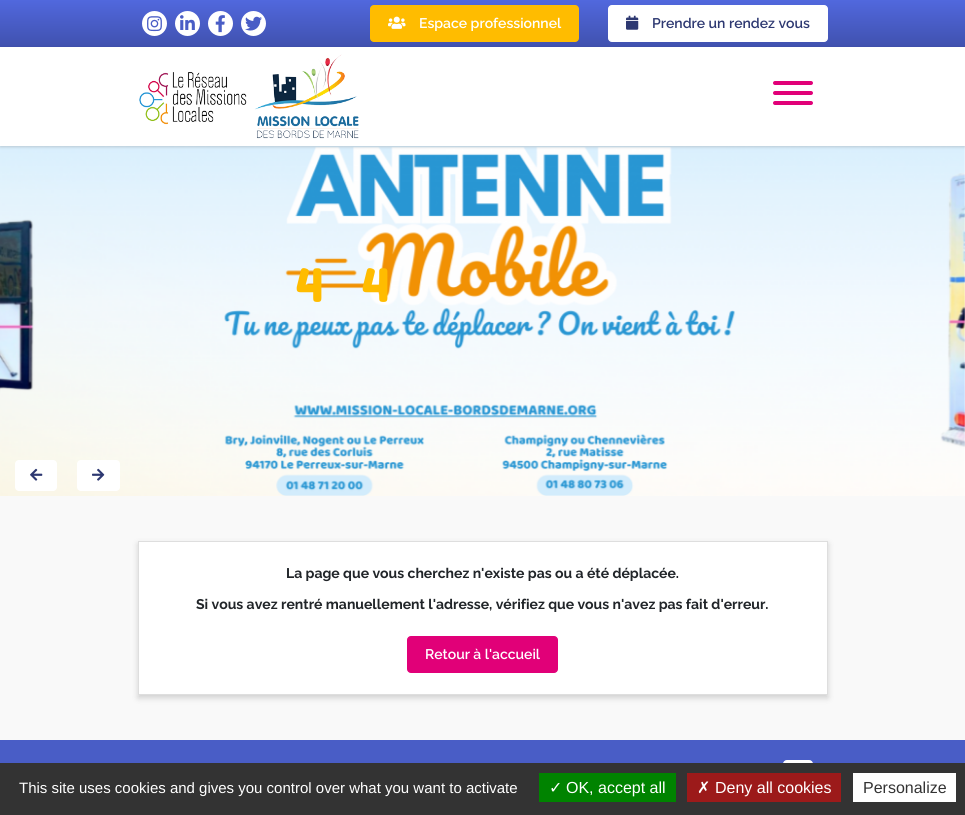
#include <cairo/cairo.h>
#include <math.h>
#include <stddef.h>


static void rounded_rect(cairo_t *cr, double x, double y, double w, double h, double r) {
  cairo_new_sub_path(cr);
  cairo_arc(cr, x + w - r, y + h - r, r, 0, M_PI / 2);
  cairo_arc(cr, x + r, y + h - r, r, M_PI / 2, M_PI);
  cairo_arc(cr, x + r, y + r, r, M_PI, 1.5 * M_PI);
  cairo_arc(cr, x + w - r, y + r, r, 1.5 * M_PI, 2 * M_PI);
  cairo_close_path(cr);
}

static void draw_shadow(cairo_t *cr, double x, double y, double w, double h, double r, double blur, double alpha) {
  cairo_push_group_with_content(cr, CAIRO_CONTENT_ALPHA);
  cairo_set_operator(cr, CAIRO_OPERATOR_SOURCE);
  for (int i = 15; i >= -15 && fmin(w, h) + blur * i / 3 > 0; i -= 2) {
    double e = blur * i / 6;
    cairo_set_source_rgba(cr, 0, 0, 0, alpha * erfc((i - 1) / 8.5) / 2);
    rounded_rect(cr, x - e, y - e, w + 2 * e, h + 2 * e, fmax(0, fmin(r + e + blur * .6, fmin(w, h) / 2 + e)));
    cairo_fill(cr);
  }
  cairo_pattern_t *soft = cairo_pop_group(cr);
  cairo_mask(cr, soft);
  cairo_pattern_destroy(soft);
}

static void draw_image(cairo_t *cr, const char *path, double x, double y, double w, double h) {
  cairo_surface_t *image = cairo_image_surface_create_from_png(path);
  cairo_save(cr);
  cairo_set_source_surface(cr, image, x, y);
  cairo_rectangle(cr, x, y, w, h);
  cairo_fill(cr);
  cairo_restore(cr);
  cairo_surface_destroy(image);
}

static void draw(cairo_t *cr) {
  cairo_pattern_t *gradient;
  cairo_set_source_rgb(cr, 1, 1, 1);
  cairo_paint(cr);
  gradient = cairo_pattern_create_linear(483, 0, 483, 47);
  cairo_pattern_add_color_stop_rgba(gradient, 0, 81 / 255.0, 104 / 255.0, 222 / 255.0, 1);
  cairo_pattern_add_color_stop_rgba(gradient, 1, 64 / 255.0, 81 / 255.0, 174 / 255.0, 1);
  cairo_set_source(cr, gradient);
  cairo_pattern_destroy(gradient);
  cairo_rectangle(cr, 0, 0, 965, 47);
  cairo_fill(cr);
  cairo_set_source_rgb(cr, 1, 1, 1);
  cairo_arc(cr, 154.5, 23.5, 12.5, 0, 2 * M_PI);
  cairo_fill(cr);
  draw_image(cr, "images/1.png", 147, 16, 15, 16);
  cairo_arc(cr, 187.5, 23.5, 12.5, 0, 2 * M_PI);
  cairo_fill(cr);
  draw_image(cr, "images/2.png", 180, 15, 15, 15);
  cairo_arc(cr, 220.5, 23.5, 12.5, 0, 2 * M_PI);
  cairo_fill(cr);
  draw_image(cr, "images/3.png", 215, 15, 10, 18);
  cairo_arc(cr, 253.5, 23.5, 12.5, 0, 2 * M_PI);
  cairo_fill(cr);
  draw_image(cr, "images/4.png", 245, 16, 17, 15);
  cairo_set_source_rgb(cr, 1, 188 / 255.0, 0);
  rounded_rect(cr, 370.5, 5.5, 208, 36, 3.5);
  cairo_fill_preserve(cr);
  cairo_set_line_width(cr, 1);
  cairo_stroke(cr);
  draw_image(cr, "images/5.png", 388, 16, 18, 13);
  cairo_set_source_rgb(cr, 1, 1, 1);
  rounded_rect(cr, 608.5, 5.5, 219, 36, 3.5);
  cairo_fill_preserve(cr);
  cairo_stroke(cr);
  draw_image(cr, "images/6.png", 626, 15, 13, 15);
  draw_image(cr, "images/8.png", 0, 146, 965, 350);
  cairo_save(cr);
  cairo_set_fill_rule(cr, CAIRO_FILL_RULE_EVEN_ODD);
  cairo_new_path(cr);
  cairo_move_to(cr, 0, 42);
  cairo_line_to(cr, 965, 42);
  cairo_line_to(cr, 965, 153);
  cairo_line_to(cr, 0, 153);
  cairo_close_path(cr);
  cairo_move_to(cr, 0, 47);
  cairo_line_to(cr, 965, 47);
  cairo_line_to(cr, 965, 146);
  cairo_line_to(cr, 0, 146);
  cairo_close_path(cr);
  cairo_clip(cr);
  cairo_set_source_rgb(cr, 41 / 255.0, 41 / 255.0, 41 / 255.0);
  draw_shadow(cr, 0, 48, 965, 99, 0, 1.5, 0.2);
  cairo_restore(cr);
  draw_image(cr, "images/7.png", 139, 54, 220, 85);
  cairo_set_source_rgb(cr, 225 / 255.0, 0, 120 / 255.0);
  rounded_rect(cr, 773, 81, 40, 4, 2);
  cairo_fill(cr);
  rounded_rect(cr, 773, 91, 40, 4, 2);
  cairo_fill(cr);
  rounded_rect(cr, 773, 101, 40, 4, 2);
  cairo_fill(cr);
  cairo_set_source_rgb(cr, 1, 1, 1);
  rounded_rect(cr, 15, 460, 42, 31, 4);
  cairo_fill(cr);
  draw_image(cr, "images/9.png", 30, 468, 13, 13);
  rounded_rect(cr, 77, 460, 43, 31, 4);
  cairo_fill(cr);
  draw_image(cr, "images/10.png", 92, 468, 13, 13);
  cairo_set_source_rgb(cr, 249 / 255.0, 249 / 255.0, 249 / 255.0);
  cairo_rectangle(cr, 0, 496, 965, 244);
  cairo_fill(cr);
  cairo_set_source_rgb(cr, 41 / 255.0, 41 / 255.0, 41 / 255.0);
  draw_shadow(cr, 138, 544, 690, 154, 0, 3, 0.2);
  cairo_set_source_rgb(cr, 1, 1, 1);
  cairo_rectangle(cr, 138.5, 541.5, 689, 153);
  cairo_fill_preserve(cr);
  cairo_set_source_rgb(cr, 222 / 255.0, 222 / 255.0, 222 / 255.0);
  cairo_stroke(cr);
  cairo_set_source_rgb(cr, 225 / 255.0, 0, 120 / 255.0);
  rounded_rect(cr, 407.5, 636.5, 150, 36, 3.5);
  cairo_fill_preserve(cr);
  cairo_stroke(cr);
  cairo_set_source_rgb(cr, 73 / 255.0, 93 / 255.0, 198 / 255.0);
  cairo_rectangle(cr, 0, 740, 965, 23);
  cairo_fill(cr);
  cairo_set_source_rgb(cr, 1, 1, 1);
  rounded_rect(cr, 783.5, 760.5, 29, 29, 3.5);
  cairo_fill_preserve(cr);
  cairo_stroke(cr);
  cairo_set_source_rgb(cr, 51 / 255.0, 51 / 255.0, 51 / 255.0);
  cairo_rectangle(cr, 0, 763, 965, 52);
  cairo_fill(cr);
  cairo_set_source_rgb(cr, 0, 131 / 255.0, 0);
  cairo_rectangle(cr, 539, 773, 137, 29);
  cairo_fill(cr);
  cairo_set_source_rgb(cr, 156 / 255.0, 26 / 255.0, 26 / 255.0);
  cairo_rectangle(cr, 687, 773, 154, 29);
  cairo_fill(cr);
  cairo_set_source_rgb(cr, 1, 1, 1);
  cairo_rectangle(cr, 853, 773, 103, 29);
  cairo_fill(cr);
  cairo_select_font_face(cr, "Raleway SemiBold", CAIRO_FONT_SLANT_NORMAL, CAIRO_FONT_WEIGHT_NORMAL);
  cairo_set_font_size(cr, 14);
  cairo_move_to(cr, 419, 28);
  cairo_show_text(cr, "Espace professionnel");
  cairo_set_source_rgb(cr, 45 / 255.0, 56 / 255.0, 113 / 255.0);
  cairo_move_to(cr, 652, 28);
  cairo_show_text(cr, "Prendre un rendez vous");
  cairo_select_font_face(cr, "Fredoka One", CAIRO_FONT_SLANT_NORMAL, CAIRO_FONT_WEIGHT_NORMAL);
  cairo_set_font_size(cr, 46);
  cairo_set_source_rgb(cr, 1, 188 / 255.0, 0);
  cairo_move_to(cr, 296, 302);
  cairo_show_text(cr, "4");
  cairo_move_to(cr, 362, 302);
  cairo_show_text(cr, "4");
  cairo_select_font_face(cr, "Raleway", CAIRO_FONT_SLANT_NORMAL, CAIRO_FONT_WEIGHT_BOLD);
  cairo_set_font_size(cr, 14);
  cairo_set_source_rgb(cr, 33 / 255.0, 37 / 255.0, 41 / 255.0);
  cairo_move_to(cr, 286, 578);
  cairo_show_text(cr, "La page que vous cherchez n'existe pas ou a été déplacée.");
  cairo_move_to(cr, 196, 609);
  cairo_show_text(cr, "Si vous avez rentré manuellement l'adresse, vérifiez que vous n'avez pas fait d'erreur.");
  cairo_select_font_face(cr, "Raleway SemiBold", CAIRO_FONT_SLANT_NORMAL, CAIRO_FONT_WEIGHT_NORMAL);
  cairo_set_source_rgb(cr, 1, 1, 1);
  cairo_move_to(cr, 425, 659);
  cairo_show_text(cr, "Retour à l'accueil");
  cairo_select_font_face(cr, "Liberation Sans", CAIRO_FONT_SLANT_NORMAL, CAIRO_FONT_WEIGHT_NORMAL);
  cairo_set_font_size(cr, 15);
  cairo_move_to(cr, 19, 793);
  cairo_show_text(cr, "This site uses cookies and gives you control over what you want to activate");
  cairo_select_font_face(cr, "DejaVu Sans", CAIRO_FONT_SLANT_NORMAL, CAIRO_FONT_WEIGHT_NORMAL);
  cairo_set_font_size(cr, 16);
  cairo_move_to(cr, 549, 793);
  cairo_show_text(cr, "✓");
  cairo_select_font_face(cr, "Liberation Sans", CAIRO_FONT_SLANT_NORMAL, CAIRO_FONT_WEIGHT_NORMAL);
  cairo_move_to(cr, 566, 793);
  cairo_show_text(cr, "OK, accept all");
  cairo_select_font_face(cr, "DejaVu Sans", CAIRO_FONT_SLANT_NORMAL, CAIRO_FONT_WEIGHT_NORMAL);
  cairo_move_to(cr, 697, 793);
  cairo_show_text(cr, "✗");
  cairo_select_font_face(cr, "Liberation Sans", CAIRO_FONT_SLANT_NORMAL, CAIRO_FONT_WEIGHT_NORMAL);
  cairo_move_to(cr, 715, 793);
  cairo_show_text(cr, "Deny all cookies");
  cairo_set_source_rgb(cr, 51 / 255.0, 51 / 255.0, 51 / 255.0);
  cairo_move_to(cr, 863, 793);
  cairo_show_text(cr, "Personalize");
}

int main(void) {
  cairo_surface_t *surface = cairo_image_surface_create(CAIRO_FORMAT_RGB24, 965, 815);
  cairo_t *cr = cairo_create(surface);
  cairo_font_options_t *options = cairo_font_options_create();
  cairo_font_options_set_hint_metrics(options, CAIRO_HINT_METRICS_OFF);
  cairo_font_options_set_hint_style(options, CAIRO_HINT_STYLE_NONE);
  cairo_set_font_options(cr, options);
  cairo_set_miter_limit(cr, 4);
  draw(cr);
  cairo_surface_write_to_png(surface, "out.png");
  cairo_font_options_destroy(options);
  cairo_destroy(cr);
  cairo_surface_destroy(surface);
  return 0;
}
